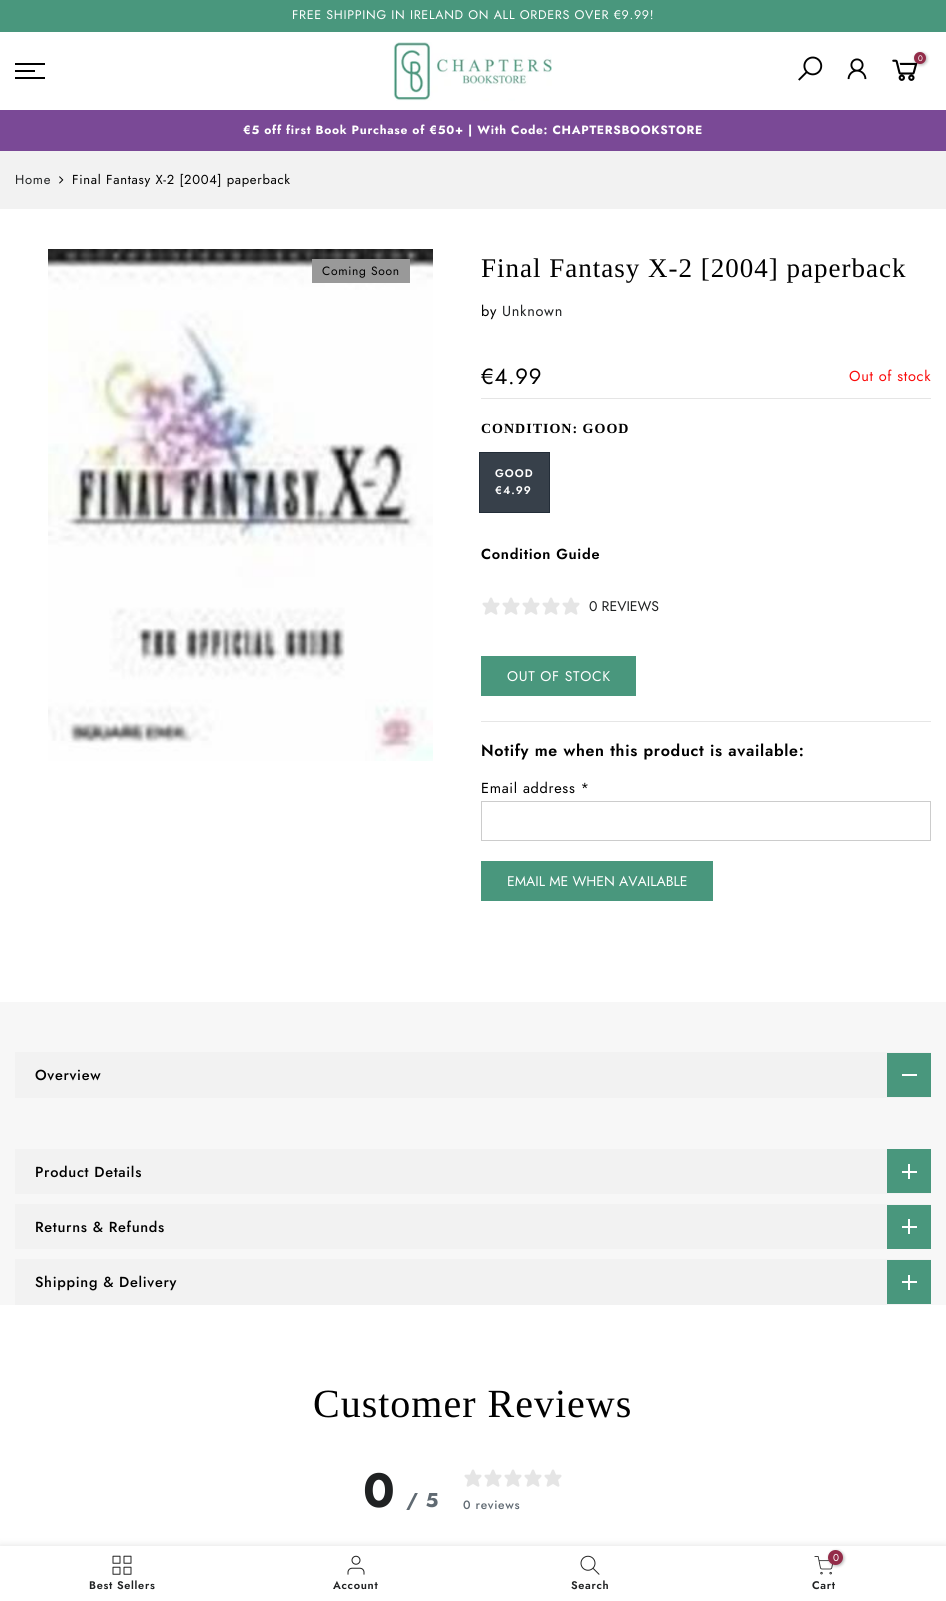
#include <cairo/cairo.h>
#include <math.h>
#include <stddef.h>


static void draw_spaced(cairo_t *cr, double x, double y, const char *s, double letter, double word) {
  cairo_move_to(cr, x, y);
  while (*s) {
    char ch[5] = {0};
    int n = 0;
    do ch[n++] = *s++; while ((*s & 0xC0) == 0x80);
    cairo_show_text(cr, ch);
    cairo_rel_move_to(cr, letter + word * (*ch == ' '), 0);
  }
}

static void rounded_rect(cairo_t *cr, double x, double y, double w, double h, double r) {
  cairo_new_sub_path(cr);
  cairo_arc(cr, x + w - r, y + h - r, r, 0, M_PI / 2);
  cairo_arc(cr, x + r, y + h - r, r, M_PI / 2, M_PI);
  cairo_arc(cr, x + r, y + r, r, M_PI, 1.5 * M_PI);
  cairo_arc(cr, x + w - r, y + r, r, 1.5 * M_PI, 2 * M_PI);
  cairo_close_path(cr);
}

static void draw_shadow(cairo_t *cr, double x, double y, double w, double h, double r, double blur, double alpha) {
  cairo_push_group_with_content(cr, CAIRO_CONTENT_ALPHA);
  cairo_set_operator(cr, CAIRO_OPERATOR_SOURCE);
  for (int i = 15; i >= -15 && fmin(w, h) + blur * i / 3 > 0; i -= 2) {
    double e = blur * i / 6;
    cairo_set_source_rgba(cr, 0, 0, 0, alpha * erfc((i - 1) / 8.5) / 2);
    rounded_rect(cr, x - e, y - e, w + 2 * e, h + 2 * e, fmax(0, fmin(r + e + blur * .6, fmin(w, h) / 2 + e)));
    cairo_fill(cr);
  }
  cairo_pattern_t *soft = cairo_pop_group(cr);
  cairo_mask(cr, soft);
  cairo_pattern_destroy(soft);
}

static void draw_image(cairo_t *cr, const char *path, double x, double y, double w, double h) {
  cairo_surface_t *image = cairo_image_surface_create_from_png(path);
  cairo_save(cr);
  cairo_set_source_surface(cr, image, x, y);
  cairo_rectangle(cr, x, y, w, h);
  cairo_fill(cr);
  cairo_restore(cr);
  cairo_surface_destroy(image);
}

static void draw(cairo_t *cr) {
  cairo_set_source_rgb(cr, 1, 1, 1);
  cairo_paint(cr);
  cairo_set_source_rgb(cr, 73 / 255.0, 151 / 255.0, 125 / 255.0);
  cairo_rectangle(cr, 0, 0, 946, 32);
  cairo_fill(cr);
  draw_image(cr, "images/1.png", 393, 42, 159, 59);
  draw_image(cr, "images/2.png", 798, 56, 25, 25);
  draw_image(cr, "images/3.png", 847, 58, 20, 22);
  draw_image(cr, "images/4.png", 892, 59, 26, 22);
  cairo_set_source_rgb(cr, 0, 0, 0);
  draw_shadow(cr, 915, 53, 12, 12, 6, 1.5, 0.3);
  cairo_set_source_rgb(cr, 147 / 255.0, 44 / 255.0, 73 / 255.0);
  cairo_arc(cr, 920, 58, 6, 0, 2 * M_PI);
  cairo_fill(cr);
  cairo_set_source_rgb(cr, 0, 0, 0);
  cairo_rectangle(cr, 15, 63, 30, 2);
  cairo_fill(cr);
  cairo_rectangle(cr, 15, 70, 20, 2);
  cairo_fill(cr);
  cairo_rectangle(cr, 15, 77, 30, 2);
  cairo_fill(cr);
  cairo_set_source_rgb(cr, 122 / 255.0, 73 / 255.0, 150 / 255.0);
  cairo_rectangle(cr, 0, 110, 946, 41);
  cairo_fill(cr);
  cairo_set_source_rgb(cr, 242 / 255.0, 242 / 255.0, 242 / 255.0);
  cairo_rectangle(cr, 0, 151, 946, 58);
  cairo_fill(cr);
  draw_image(cr, "images/5.png", 59, 176, 5, 8);
  draw_image(cr, "images/6.png", 48, 249, 385, 512);
  cairo_set_source_rgb(cr, 153 / 255.0, 153 / 255.0, 153 / 255.0);
  cairo_rectangle(cr, 312, 259, 98, 24);
  cairo_fill(cr);
  cairo_set_source_rgb(cr, 229 / 255.0, 229 / 255.0, 229 / 255.0);
  cairo_rectangle(cr, 481, 398, 450, 1);
  cairo_fill(cr);
  cairo_set_source_rgb(cr, 55 / 255.0, 64 / 255.0, 74 / 255.0);
  cairo_rectangle(cr, 479.5, 452.5, 70, 60);
  cairo_fill_preserve(cr);
  cairo_set_source_rgb(cr, 35 / 255.0, 45 / 255.0, 56 / 255.0);
  cairo_set_line_width(cr, 1);
  cairo_stroke(cr);
  draw_image(cr, "images/7.png", 482, 597, 18, 18);
  draw_image(cr, "images/7.png", 502, 597, 18, 18);
  draw_image(cr, "images/7.png", 522, 597, 18, 18);
  draw_image(cr, "images/7.png", 542, 597, 18, 18);
  draw_image(cr, "images/7.png", 562, 597, 18, 18);
  cairo_set_source_rgb(cr, 73 / 255.0, 151 / 255.0, 125 / 255.0);
  cairo_rectangle(cr, 481, 656, 155, 40);
  cairo_fill(cr);
  cairo_set_source_rgb(cr, 230 / 255.0, 230 / 255.0, 230 / 255.0);
  cairo_rectangle(cr, 481, 721, 450, 1);
  cairo_fill(cr);
  cairo_rectangle(cr, 481.5, 801.5, 449, 39);
  cairo_set_source_rgb(cr, 204 / 255.0, 204 / 255.0, 204 / 255.0);
  cairo_stroke(cr);
  cairo_set_source_rgb(cr, 73 / 255.0, 151 / 255.0, 125 / 255.0);
  cairo_rectangle(cr, 481, 861, 232, 40);
  cairo_fill(cr);
  cairo_set_source_rgb(cr, 247 / 255.0, 247 / 255.0, 247 / 255.0);
  cairo_rectangle(cr, 0, 1002, 946, 303);
  cairo_fill(cr);
  cairo_set_source_rgb(cr, 242 / 255.0, 242 / 255.0, 242 / 255.0);
  cairo_rectangle(cr, 15, 1052, 916, 46);
  cairo_fill(cr);
  cairo_set_source_rgb(cr, 73 / 255.0, 151 / 255.0, 125 / 255.0);
  cairo_rectangle(cr, 887, 1053, 44, 44);
  cairo_fill(cr);
  cairo_set_source_rgb(cr, 1, 1, 1);
  cairo_rectangle(cr, 902, 1074, 15, 2);
  cairo_fill(cr);
  cairo_set_source_rgb(cr, 242 / 255.0, 242 / 255.0, 242 / 255.0);
  cairo_rectangle(cr, 15, 1149, 916, 45);
  cairo_fill(cr);
  cairo_set_source_rgb(cr, 73 / 255.0, 151 / 255.0, 125 / 255.0);
  cairo_rectangle(cr, 887, 1149, 44, 44);
  cairo_fill(cr);
  cairo_set_source_rgb(cr, 1, 1, 1);
  cairo_rectangle(cr, 908, 1164, 2, 15);
  cairo_fill(cr);
  cairo_rectangle(cr, 902, 1171, 15, 2);
  cairo_fill(cr);
  cairo_set_source_rgb(cr, 242 / 255.0, 242 / 255.0, 242 / 255.0);
  cairo_rectangle(cr, 15, 1204, 916, 45);
  cairo_fill(cr);
  cairo_set_source_rgb(cr, 73 / 255.0, 151 / 255.0, 125 / 255.0);
  cairo_rectangle(cr, 887, 1205, 44, 44);
  cairo_fill(cr);
  cairo_set_source_rgb(cr, 1, 1, 1);
  cairo_rectangle(cr, 908, 1219, 2, 15);
  cairo_fill(cr);
  cairo_rectangle(cr, 902, 1226, 15, 2);
  cairo_fill(cr);
  cairo_set_source_rgb(cr, 242 / 255.0, 242 / 255.0, 242 / 255.0);
  cairo_rectangle(cr, 15, 1259, 916, 46);
  cairo_fill(cr);
  cairo_set_source_rgb(cr, 73 / 255.0, 151 / 255.0, 125 / 255.0);
  cairo_rectangle(cr, 887, 1260, 44, 44);
  cairo_fill(cr);
  cairo_set_source_rgb(cr, 1, 1, 1);
  cairo_rectangle(cr, 908, 1275, 2, 15);
  cairo_fill(cr);
  cairo_rectangle(cr, 902, 1281, 15, 2);
  cairo_fill(cr);
  draw_image(cr, "images/7.png", 464, 1469, 18, 18);
  draw_image(cr, "images/7.png", 484, 1469, 18, 18);
  draw_image(cr, "images/7.png", 504, 1469, 18, 18);
  draw_image(cr, "images/7.png", 524, 1469, 18, 18);
  draw_image(cr, "images/7.png", 544, 1469, 18, 18);
  cairo_set_source_rgb(cr, 0, 0, 0);
  draw_shadow(cr, 0, 1546, 946, 55, 0, 4.5, 0.12);
  cairo_set_source_rgb(cr, 1, 1, 1);
  cairo_rectangle(cr, 0, 1546, 946, 55);
  cairo_fill(cr);
  draw_image(cr, "images/8.png", 112, 1555, 20, 20);
  draw_image(cr, "images/9.png", 347, 1555, 18, 20);
  draw_image(cr, "images/10.png", 580, 1555, 20, 20);
  draw_image(cr, "images/11.png", 814, 1556, 19, 19);
  cairo_set_source_rgb(cr, 0, 0, 0);
  draw_shadow(cr, 829, 1551, 15, 15, 7.5, 1.5, 0.3);
  cairo_set_source_rgb(cr, 147 / 255.0, 44 / 255.0, 73 / 255.0);
  cairo_arc(cr, 835.5, 1557.5, 7.5, 0, 2 * M_PI);
  cairo_fill(cr);
  cairo_select_font_face(cr, "Jost", CAIRO_FONT_SLANT_NORMAL, CAIRO_FONT_WEIGHT_NORMAL);
  cairo_set_font_size(cr, 12.5);
  cairo_set_source_rgb(cr, 1, 1, 1);
  draw_spaced(cr, 292, 19, "FREE SHIPPING IN IRELAND ON ALL ORDERS OVER €9.99!", 0.7, 0);
  cairo_set_font_size(cr, 8);
  cairo_move_to(cr, 918, 61);
  cairo_show_text(cr, "0");
  cairo_select_font_face(cr, "Jost", CAIRO_FONT_SLANT_NORMAL, CAIRO_FONT_WEIGHT_BOLD);
  cairo_set_font_size(cr, 12);
  draw_spaced(cr, 243, 134, "€5 off first Book Purchase of €50+ | With Code: CHAPTERSBOOKSTORE", 0.7, 0);
  cairo_select_font_face(cr, "Jost", CAIRO_FONT_SLANT_NORMAL, CAIRO_FONT_WEIGHT_NORMAL);
  cairo_set_font_size(cr, 13);
  cairo_set_source_rgb(cr, 32 / 255.0, 34 / 255.0, 35 / 255.0);
  draw_spaced(cr, 15, 184, "Home", 0.7, 0);
  cairo_set_source_rgb(cr, 0, 0, 0);
  draw_spaced(cr, 72, 184, "Final Fantasy X-2 [2004] paperback", 0.7, 0);
  cairo_set_font_size(cr, 12);
  draw_spaced(cr, 322, 275, "Coming Soon", 0.7, 0);
  cairo_select_font_face(cr, "Liberation Serif", CAIRO_FONT_SLANT_NORMAL, CAIRO_FONT_WEIGHT_NORMAL);
  cairo_set_font_size(cr, 27);
  draw_spaced(cr, 481, 277, "Final Fantasy X-2 [2004] paperback", 1, 0);
  cairo_select_font_face(cr, "Jost", CAIRO_FONT_SLANT_NORMAL, CAIRO_FONT_WEIGHT_NORMAL);
  cairo_set_font_size(cr, 14.5);
  draw_spaced(cr, 481, 316, "by", 0.7, 0);
  cairo_set_source_rgb(cr, 32 / 255.0, 34 / 255.0, 35 / 255.0);
  draw_spaced(cr, 502, 316, "Unknown", 0.7, 0);
  cairo_set_font_size(cr, 22);
  cairo_set_source_rgb(cr, 0, 0, 0);
  draw_spaced(cr, 481, 384, "€4.99", 0.7, 0);
  cairo_set_font_size(cr, 14.5);
  cairo_set_source_rgb(cr, 250 / 255.0, 11 / 255.0, 11 / 255.0);
  draw_spaced(cr, 849, 381, "Out of stock", 0.7, 0);
  cairo_select_font_face(cr, "Liberation Serif", CAIRO_FONT_SLANT_NORMAL, CAIRO_FONT_WEIGHT_BOLD);
  cairo_set_font_size(cr, 14);
  cairo_set_source_rgb(cr, 0, 0, 0);
  draw_spaced(cr, 481, 433, "CONDITION: GOOD", 1, 0);
  cairo_select_font_face(cr, "Jost SemiBold", CAIRO_FONT_SLANT_NORMAL, CAIRO_FONT_WEIGHT_NORMAL);
  cairo_set_font_size(cr, 11);
  cairo_set_source_rgb(cr, 1, 1, 1);
  draw_spaced(cr, 495, 477, "GOOD", 1, 0);
  draw_spaced(cr, 495, 494, "€4.99", 1, 0);
  cairo_set_font_size(cr, 14.5);
  cairo_set_source_rgb(cr, 0, 0, 0);
  draw_spaced(cr, 481, 559, "Condition Guide", 0.7, 0);
  cairo_select_font_face(cr, "Jost", CAIRO_FONT_SLANT_NORMAL, CAIRO_FONT_WEIGHT_NORMAL);
  cairo_set_font_size(cr, 14);
  cairo_set_source_rgb(cr, 32 / 255.0, 34 / 255.0, 35 / 255.0);
  cairo_move_to(cr, 589, 611);
  cairo_show_text(cr, "0 REVIEWS");
  cairo_set_source_rgb(cr, 1, 1, 1);
  draw_spaced(cr, 507, 681, "OUT OF STOCK", 0.7, 0);
  cairo_select_font_face(cr, "Jost SemiBold", CAIRO_FONT_SLANT_NORMAL, CAIRO_FONT_WEIGHT_NORMAL);
  cairo_set_font_size(cr, 16);
  cairo_set_source_rgb(cr, 0, 0, 0);
  draw_spaced(cr, 481, 756, "Notify me when this product is available:", 0.7, 0);
  cairo_select_font_face(cr, "Jost", CAIRO_FONT_SLANT_NORMAL, CAIRO_FONT_WEIGHT_NORMAL);
  cairo_set_font_size(cr, 14.5);
  draw_spaced(cr, 481, 793, "Email address *", 0.7, 0);
  cairo_set_font_size(cr, 14);
  cairo_set_source_rgb(cr, 1, 1, 1);
  cairo_move_to(cr, 507, 886);
  cairo_show_text(cr, "EMAIL ME WHEN AVAILABLE");
  cairo_select_font_face(cr, "Jost Medium", CAIRO_FONT_SLANT_NORMAL, CAIRO_FONT_WEIGHT_NORMAL);
  cairo_set_font_size(cr, 14.5);
  cairo_set_source_rgb(cr, 0, 0, 0);
  draw_spaced(cr, 35, 1080, "Overview", 0.7, 0);
  draw_spaced(cr, 35, 1177, "Product Details", 0.7, 0);
  draw_spaced(cr, 35, 1232, "Returns & Refunds", 0.7, 0);
  draw_spaced(cr, 35, 1287, "Shipping & Delivery", 0.7, 0);
  cairo_select_font_face(cr, "Liberation Serif", CAIRO_FONT_SLANT_NORMAL, CAIRO_FONT_WEIGHT_NORMAL);
  cairo_set_font_size(cr, 40);
  draw_spaced(cr, 313, 1417, "Customer Reviews", 1, 0);
  cairo_select_font_face(cr, "Jost", CAIRO_FONT_SLANT_NORMAL, CAIRO_FONT_WEIGHT_BOLD);
  cairo_set_font_size(cr, 48);
  cairo_set_source_rgb(cr, 32 / 255.0, 34 / 255.0, 35 / 255.0);
  draw_spaced(cr, 363, 1507, "0", 0.7, 0);
  cairo_set_font_size(cr, 20);
  cairo_set_source_rgb(cr, 96 / 255.0, 106 / 255.0, 114 / 255.0);
  draw_spaced(cr, 406, 1507, "/ 5", 0.7, 0);
  cairo_select_font_face(cr, "Jost Medium", CAIRO_FONT_SLANT_NORMAL, CAIRO_FONT_WEIGHT_NORMAL);
  cairo_set_font_size(cr, 12);
  draw_spaced(cr, 463, 1509, "0 reviews", 0.7, 0);
  cairo_select_font_face(cr, "Jost SemiBold", CAIRO_FONT_SLANT_NORMAL, CAIRO_FONT_WEIGHT_NORMAL);
  cairo_set_font_size(cr, 11);
  cairo_set_source_rgb(cr, 32 / 255.0, 34 / 255.0, 35 / 255.0);
  draw_spaced(cr, 89, 1589, "Best Sellers", 0.7, 0);
  draw_spaced(cr, 333, 1589, "Account", 0.7, 0);
  draw_spaced(cr, 571, 1589, "Search", 0.7, 0);
  cairo_select_font_face(cr, "Jost", CAIRO_FONT_SLANT_NORMAL, CAIRO_FONT_WEIGHT_NORMAL);
  cairo_set_font_size(cr, 10);
  cairo_set_source_rgb(cr, 1, 1, 1);
  cairo_move_to(cr, 833, 1561);
  cairo_show_text(cr, "0");
  cairo_select_font_face(cr, "Jost SemiBold", CAIRO_FONT_SLANT_NORMAL, CAIRO_FONT_WEIGHT_NORMAL);
  cairo_set_font_size(cr, 11);
  cairo_set_source_rgb(cr, 32 / 255.0, 34 / 255.0, 35 / 255.0);
  draw_spaced(cr, 812, 1589, "Cart", 0.7, 0);
}

int main(void) {
  cairo_surface_t *surface = cairo_image_surface_create(CAIRO_FORMAT_RGB24, 946, 1601);
  cairo_t *cr = cairo_create(surface);
  cairo_font_options_t *options = cairo_font_options_create();
  cairo_font_options_set_hint_metrics(options, CAIRO_HINT_METRICS_OFF);
  cairo_font_options_set_hint_style(options, CAIRO_HINT_STYLE_NONE);
  cairo_set_font_options(cr, options);
  cairo_set_miter_limit(cr, 4);
  draw(cr);
  cairo_surface_write_to_png(surface, "out.png");
  cairo_font_options_destroy(options);
  cairo_destroy(cr);
  cairo_surface_destroy(surface);
  return 0;
}
